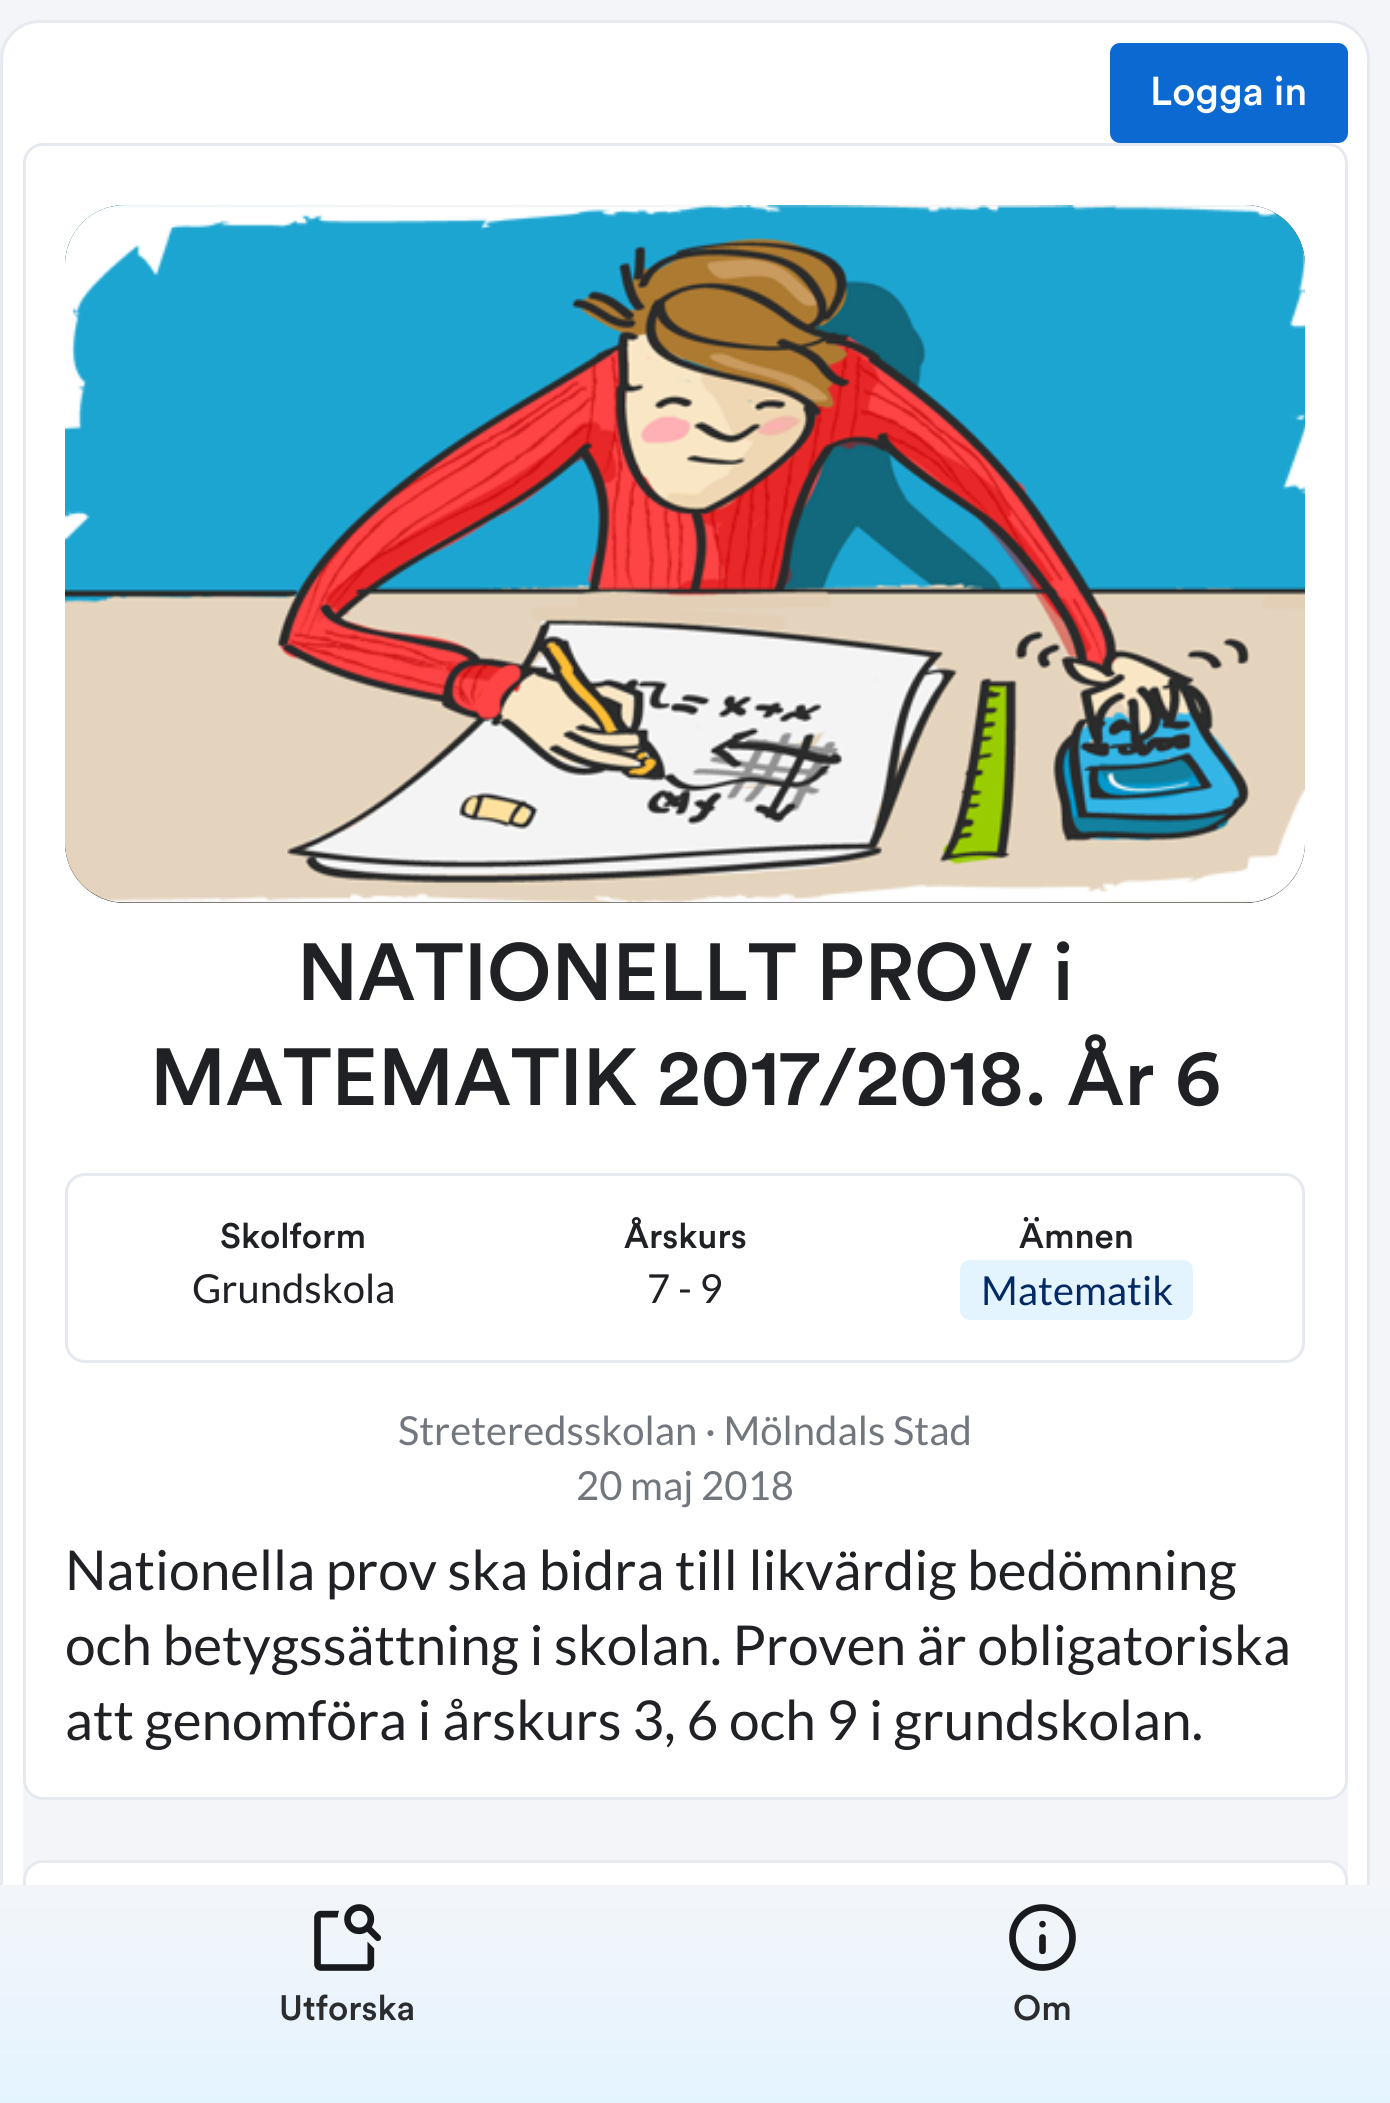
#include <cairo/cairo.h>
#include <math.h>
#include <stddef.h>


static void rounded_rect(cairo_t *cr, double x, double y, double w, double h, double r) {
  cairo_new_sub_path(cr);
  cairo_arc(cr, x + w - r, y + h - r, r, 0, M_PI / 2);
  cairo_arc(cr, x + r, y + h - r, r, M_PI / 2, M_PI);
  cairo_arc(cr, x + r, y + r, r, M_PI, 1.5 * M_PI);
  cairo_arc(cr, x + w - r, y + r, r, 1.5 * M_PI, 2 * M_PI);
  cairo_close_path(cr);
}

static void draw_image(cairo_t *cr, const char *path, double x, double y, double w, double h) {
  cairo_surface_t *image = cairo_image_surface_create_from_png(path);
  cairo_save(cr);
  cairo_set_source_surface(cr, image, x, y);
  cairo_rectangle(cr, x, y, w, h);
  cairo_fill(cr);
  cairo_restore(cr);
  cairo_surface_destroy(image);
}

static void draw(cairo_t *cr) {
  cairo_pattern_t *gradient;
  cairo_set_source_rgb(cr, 243 / 255.0, 245 / 255.0, 249 / 255.0);
  cairo_paint(cr);
  cairo_set_source_rgb(cr, 1, 1, 1);
  rounded_rect(cr, 1.5, 21.5, 1367, 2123, 38.5);
  cairo_fill_preserve(cr);
  cairo_set_source_rgb(cr, 230 / 255.0, 233 / 255.0, 240 / 255.0);
  cairo_set_line_width(cr, 3);
  cairo_stroke(cr);
  cairo_set_source_rgb(cr, 12 / 255.0, 105 / 255.0, 210 / 255.0);
  rounded_rect(cr, 1110, 43, 238, 100, 10);
  cairo_fill(cr);
  cairo_set_source_rgb(cr, 243 / 255.0, 245 / 255.0, 249 / 255.0);
  rounded_rect(cr, 23, 143, 1325, 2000, 40);
  cairo_fill(cr);
  cairo_set_source_rgb(cr, 1, 1, 1);
  rounded_rect(cr, 24.5, 144.5, 1322, 1654, 18.5);
  cairo_fill_preserve(cr);
  cairo_set_source_rgb(cr, 230 / 255.0, 233 / 255.0, 240 / 255.0);
  cairo_stroke(cr);
  cairo_set_source_rgb(cr, 17 / 255.0, 17 / 255.0, 17 / 255.0);
  rounded_rect(cr, 65, 205, 1240, 698, 60);
  cairo_fill(cr);
  draw_image(cr, "images/1.png", 65, 205, 1240, 698);
  draw_image(cr, "images/2.png", 65, 205, 1240, 698);
  rounded_rect(cr, 66.5, 1174.5, 1237, 187, 18.5);
  cairo_set_source_rgb(cr, 230 / 255.0, 233 / 255.0, 240 / 255.0);
  cairo_stroke(cr);
  cairo_set_source_rgb(cr, 228 / 255.0, 244 / 255.0, 1);
  rounded_rect(cr, 960, 1260, 233, 60, 10);
  cairo_fill(cr);
  cairo_set_source_rgb(cr, 1, 1, 1);
  rounded_rect(cr, 24.5, 1861.5, 1322, 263, 18.5);
  cairo_fill_preserve(cr);
  cairo_set_source_rgb(cr, 230 / 255.0, 233 / 255.0, 240 / 255.0);
  cairo_stroke(cr);
  gradient = cairo_pattern_create_linear(695, 1885, 695, 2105);
  cairo_pattern_add_color_stop_rgba(gradient, 0, 243 / 255.0, 245 / 255.0, 249 / 255.0, 1);
  cairo_pattern_add_color_stop_rgba(gradient, 1, 228 / 255.0, 244 / 255.0, 1, 1);
  cairo_set_source(cr, gradient);
  cairo_pattern_destroy(gradient);
  cairo_rectangle(cr, 0, 1885, 1390, 218);
  cairo_fill(cr);
  draw_image(cr, "images/3.png", 314, 1904, 68, 67);
  draw_image(cr, "images/4.png", 1009, 1904, 67, 67);
  cairo_select_font_face(cr, "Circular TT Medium", CAIRO_FONT_SLANT_NORMAL, CAIRO_FONT_WEIGHT_NORMAL);
  cairo_set_font_size(cr, 40);
  cairo_set_source_rgb(cr, 1, 1, 1);
  cairo_move_to(cr, 1150, 105);
  cairo_show_text(cr, "Logga in");
  cairo_set_font_size(cr, 80);
  cairo_set_source_rgb(cr, 31 / 255.0, 33 / 255.0, 36 / 255.0);
  cairo_move_to(cr, 297, 1000);
  cairo_show_text(cr, "NATIONELLT PROV i");
  cairo_move_to(cr, 150, 1105);
  cairo_show_text(cr, "MATEMATIK 2017/2018. År 6");
  cairo_set_font_size(cr, 35);
  cairo_move_to(cr, 220, 1248);
  cairo_show_text(cr, "Skolform");
  cairo_select_font_face(cr, "Lato", CAIRO_FONT_SLANT_NORMAL, CAIRO_FONT_WEIGHT_NORMAL);
  cairo_set_font_size(cr, 40);
  cairo_move_to(cr, 192, 1303);
  cairo_show_text(cr, "Grundskola");
  cairo_select_font_face(cr, "Circular TT Medium", CAIRO_FONT_SLANT_NORMAL, CAIRO_FONT_WEIGHT_NORMAL);
  cairo_set_font_size(cr, 35);
  cairo_move_to(cr, 624, 1248);
  cairo_show_text(cr, "Årskurs");
  cairo_select_font_face(cr, "Lato", CAIRO_FONT_SLANT_NORMAL, CAIRO_FONT_WEIGHT_NORMAL);
  cairo_set_font_size(cr, 40);
  cairo_move_to(cr, 647, 1303);
  cairo_show_text(cr, "7 - 9");
  cairo_select_font_face(cr, "Circular TT Medium", CAIRO_FONT_SLANT_NORMAL, CAIRO_FONT_WEIGHT_NORMAL);
  cairo_set_font_size(cr, 35);
  cairo_move_to(cr, 1019, 1248);
  cairo_show_text(cr, "Ämnen");
  cairo_select_font_face(cr, "Lato", CAIRO_FONT_SLANT_NORMAL, CAIRO_FONT_WEIGHT_NORMAL);
  cairo_set_font_size(cr, 40);
  cairo_set_source_rgb(cr, 4 / 255.0, 42 / 255.0, 101 / 255.0);
  cairo_move_to(cr, 981, 1305);
  cairo_show_text(cr, "Matematik");
  cairo_set_source_rgb(cr, 114 / 255.0, 119 / 255.0, 126 / 255.0);
  cairo_move_to(cr, 398, 1445);
  cairo_show_text(cr, "Streteredsskolan · Mölndals Stad");
  cairo_move_to(cr, 576, 1500);
  cairo_show_text(cr, "20 maj 2018");
  cairo_set_font_size(cr, 55);
  cairo_set_source_rgb(cr, 31 / 255.0, 33 / 255.0, 36 / 255.0);
  cairo_move_to(cr, 65, 1590);
  cairo_show_text(cr, "Nationella prov ska bidra till likvärdig bedömning");
  cairo_move_to(cr, 65, 1665);
  cairo_show_text(cr, "och betygssättning i skolan. Proven är obligatoriska");
  cairo_move_to(cr, 65, 1740);
  cairo_show_text(cr, "att genomföra i årskurs 3, 6 och 9 i grundskolan.");
  cairo_select_font_face(cr, "Circular TT Medium", CAIRO_FONT_SLANT_NORMAL, CAIRO_FONT_WEIGHT_NORMAL);
  cairo_set_font_size(cr, 35);
  cairo_set_source_rgb(cr, 42 / 255.0, 44 / 255.0, 46 / 255.0);
  cairo_move_to(cr, 279, 2020);
  cairo_show_text(cr, "Utforska");
  cairo_move_to(cr, 1013, 2020);
  cairo_show_text(cr, "Om");
}

int main(void) {
  cairo_surface_t *surface = cairo_image_surface_create(CAIRO_FORMAT_RGB24, 1390, 2103);
  cairo_t *cr = cairo_create(surface);
  cairo_font_options_t *options = cairo_font_options_create();
  cairo_font_options_set_hint_metrics(options, CAIRO_HINT_METRICS_OFF);
  cairo_font_options_set_hint_style(options, CAIRO_HINT_STYLE_NONE);
  cairo_set_font_options(cr, options);
  cairo_set_miter_limit(cr, 4);
  draw(cr);
  cairo_surface_write_to_png(surface, "out.png");
  cairo_font_options_destroy(options);
  cairo_destroy(cr);
  cairo_surface_destroy(surface);
  return 0;
}
